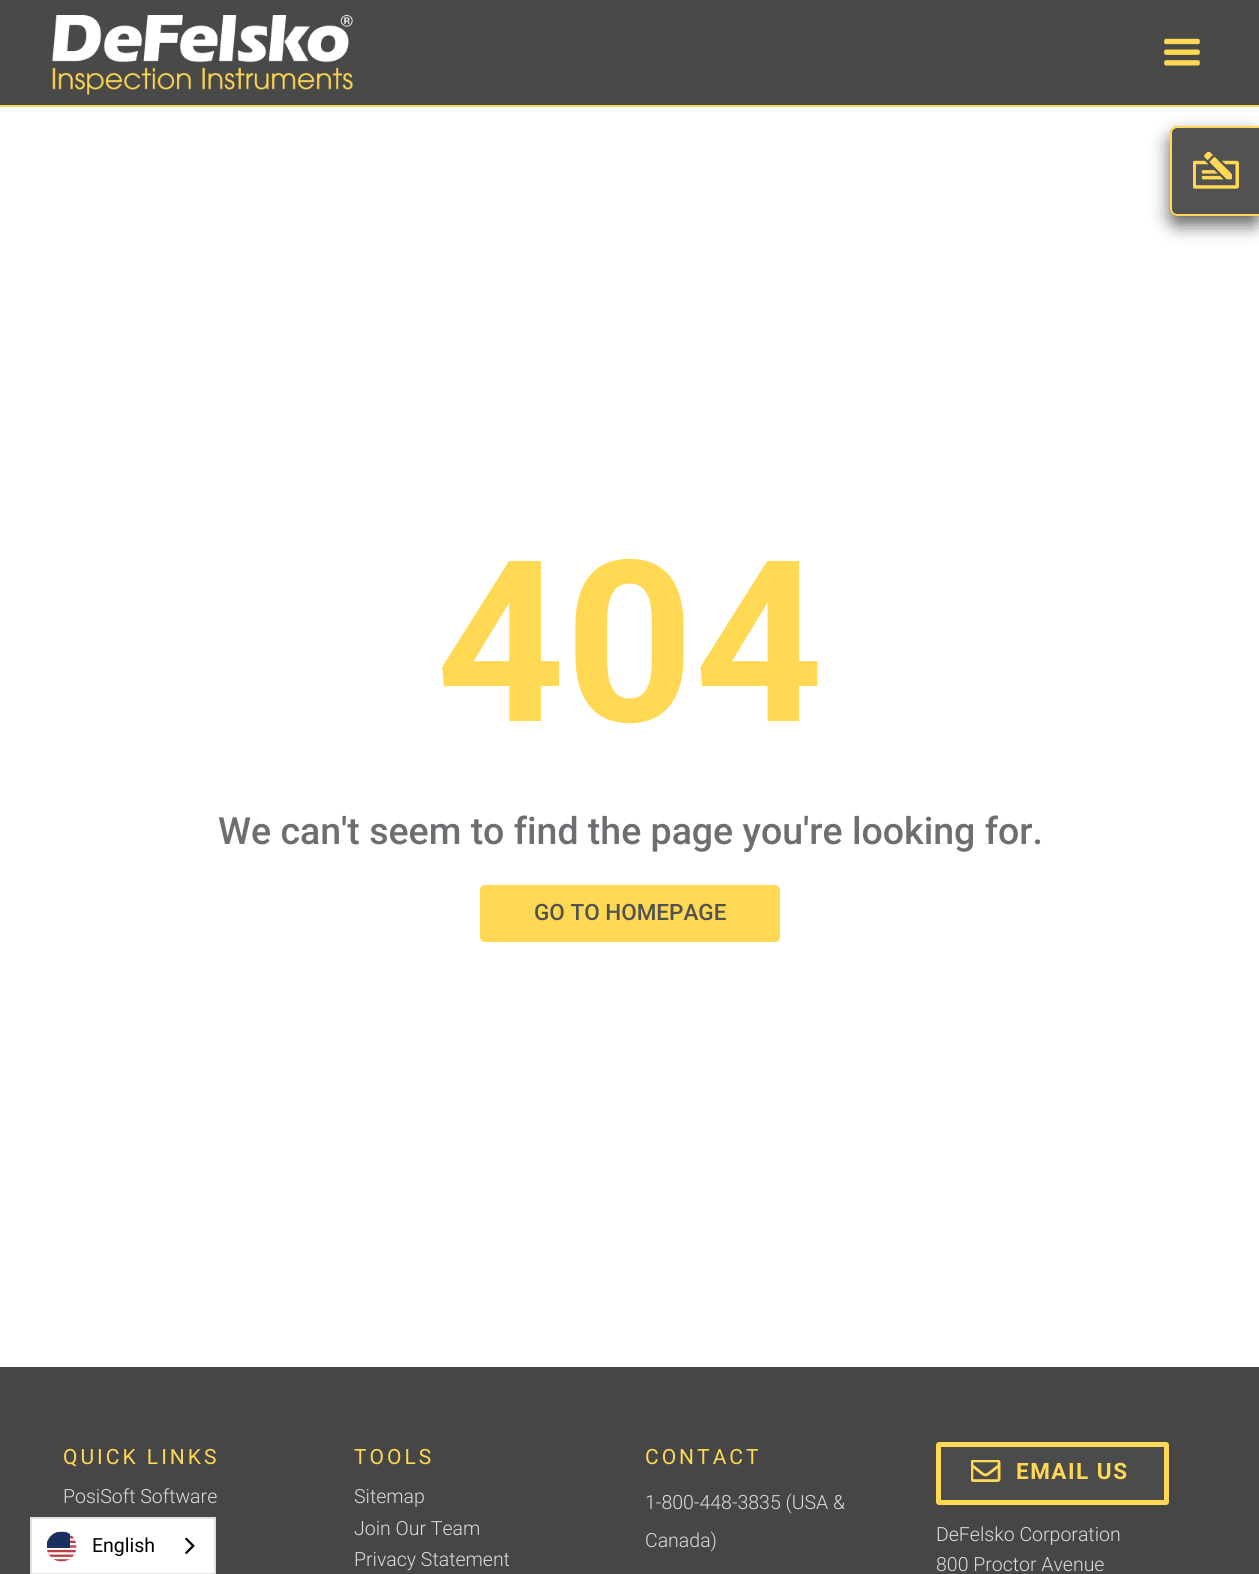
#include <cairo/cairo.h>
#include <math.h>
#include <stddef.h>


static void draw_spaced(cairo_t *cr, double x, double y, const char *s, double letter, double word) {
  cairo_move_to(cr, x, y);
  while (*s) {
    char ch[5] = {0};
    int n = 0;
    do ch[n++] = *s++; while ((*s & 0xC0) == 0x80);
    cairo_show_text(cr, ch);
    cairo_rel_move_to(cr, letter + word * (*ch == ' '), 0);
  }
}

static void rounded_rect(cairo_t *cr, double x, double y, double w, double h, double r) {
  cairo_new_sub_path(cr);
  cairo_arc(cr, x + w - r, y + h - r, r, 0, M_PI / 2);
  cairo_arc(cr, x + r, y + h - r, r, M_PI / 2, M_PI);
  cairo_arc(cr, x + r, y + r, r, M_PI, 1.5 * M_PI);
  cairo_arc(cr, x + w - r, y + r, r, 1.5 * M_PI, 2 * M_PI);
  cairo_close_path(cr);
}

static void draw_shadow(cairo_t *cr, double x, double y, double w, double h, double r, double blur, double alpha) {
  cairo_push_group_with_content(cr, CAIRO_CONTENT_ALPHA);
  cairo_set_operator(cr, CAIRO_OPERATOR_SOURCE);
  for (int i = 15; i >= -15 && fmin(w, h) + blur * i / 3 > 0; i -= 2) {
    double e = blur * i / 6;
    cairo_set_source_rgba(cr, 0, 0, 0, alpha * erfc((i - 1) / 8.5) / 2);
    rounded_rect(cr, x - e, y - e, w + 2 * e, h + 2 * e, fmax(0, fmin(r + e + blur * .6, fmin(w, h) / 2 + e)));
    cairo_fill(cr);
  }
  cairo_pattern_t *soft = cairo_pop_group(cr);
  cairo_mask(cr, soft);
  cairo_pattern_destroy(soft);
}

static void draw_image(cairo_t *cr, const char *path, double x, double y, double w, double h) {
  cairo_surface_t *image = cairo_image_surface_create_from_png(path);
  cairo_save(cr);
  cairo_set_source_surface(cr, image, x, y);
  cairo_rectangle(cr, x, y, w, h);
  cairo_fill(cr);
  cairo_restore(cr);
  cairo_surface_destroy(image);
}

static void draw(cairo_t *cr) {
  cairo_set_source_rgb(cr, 1, 1, 1);
  cairo_paint(cr);
  cairo_set_source_rgb(cr, 73 / 255.0, 73 / 255.0, 72 / 255.0);
  cairo_rectangle(cr, 0, 0, 1259, 105);
  cairo_fill(cr);
  cairo_set_source_rgb(cr, 1, 216 / 255.0, 84 / 255.0);
  cairo_rectangle(cr, 0, 105, 1259, 2);
  cairo_fill(cr);
  draw_image(cr, "images/1.png", 52, 15, 301, 80);
  draw_image(cr, "images/2.png", 1164, 38, 36, 28);
  cairo_set_source_rgb(cr, 0, 0, 0);
  draw_shadow(cr, 1170, 135, 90, 90, 8, 9, 0.62);
  cairo_set_source_rgb(cr, 82 / 255.0, 82 / 255.0, 82 / 255.0);
  cairo_new_path(cr);
  cairo_move_to(cr, 1178, 126);
  cairo_line_to(cr, 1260, 126);
  cairo_line_to(cr, 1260, 216);
  cairo_line_to(cr, 1178, 216);
  cairo_curve_to(cr, 1173.5, 216, 1170, 212.5, 1170, 208);
  cairo_line_to(cr, 1170, 134);
  cairo_curve_to(cr, 1170, 129.5, 1173.5, 126, 1178, 126);
  cairo_close_path(cr);
  cairo_fill(cr);
  cairo_set_source_rgb(cr, 1, 216 / 255.0, 84 / 255.0);
  cairo_set_fill_rule(cr, CAIRO_FILL_RULE_EVEN_ODD);
  cairo_new_path(cr);
  cairo_move_to(cr, 1178, 126);
  cairo_line_to(cr, 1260, 126);
  cairo_line_to(cr, 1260, 216);
  cairo_line_to(cr, 1178, 216);
  cairo_curve_to(cr, 1173, 216, 1170, 213, 1170, 208);
  cairo_line_to(cr, 1170, 134);
  cairo_curve_to(cr, 1170, 129, 1173, 126, 1178, 126);
  cairo_close_path(cr);
  cairo_move_to(cr, 1178, 128);
  cairo_line_to(cr, 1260, 128);
  cairo_line_to(cr, 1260, 214);
  cairo_line_to(cr, 1178, 214);
  cairo_curve_to(cr, 1174, 214, 1172, 212, 1172, 208);
  cairo_line_to(cr, 1172, 134);
  cairo_curve_to(cr, 1172, 130, 1174, 128, 1178, 128);
  cairo_close_path(cr);
  cairo_fill(cr);
  draw_image(cr, "images/3.png", 1193, 152, 46, 37);
  rounded_rect(cr, 480, 885, 300, 57, 5);
  cairo_fill(cr);
  cairo_set_source_rgb(cr, 70 / 255.0, 70 / 255.0, 70 / 255.0);
  cairo_rectangle(cr, 0, 1367, 1259, 207);
  cairo_fill(cr);
  cairo_set_source_rgb(cr, 75 / 255.0, 75 / 255.0, 75 / 255.0);
  rounded_rect(cr, 938.5, 1444.5, 228, 58, 0.5);
  cairo_fill_preserve(cr);
  cairo_set_source_rgb(cr, 1, 216 / 255.0, 84 / 255.0);
  cairo_set_line_width(cr, 5);
  cairo_stroke(cr);
  draw_image(cr, "images/4.png", 971, 1460, 30, 22);
  cairo_set_source_rgb(cr, 1, 1, 1);
  cairo_rectangle(cr, 31, 1518, 184, 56);
  cairo_fill_preserve(cr);
  cairo_set_source_rgb(cr, 224 / 255.0, 224 / 255.0, 224 / 255.0);
  cairo_set_line_width(cr, 2);
  cairo_stroke(cr);
  draw_image(cr, "images/5.png", 47, 1531, 30, 31);
  draw_image(cr, "images/6.png", 185, 1537, 10, 17);
  cairo_select_font_face(cr, "Roboto", CAIRO_FONT_SLANT_NORMAL, CAIRO_FONT_WEIGHT_BOLD);
  cairo_set_font_size(cr, 225);
  cairo_set_source_rgb(cr, 1, 216 / 255.0, 84 / 255.0);
  cairo_move_to(cr, 436, 721);
  cairo_show_text(cr, "404");
  cairo_select_font_face(cr, "Roboto Medium", CAIRO_FONT_SLANT_NORMAL, CAIRO_FONT_WEIGHT_NORMAL);
  cairo_set_font_size(cr, 37.5);
  cairo_set_source_rgb(cr, 109 / 255.0, 110 / 255.0, 113 / 255.0);
  cairo_move_to(cr, 218, 844);
  cairo_show_text(cr, "We can't seem to find the page you're looking for.");
  cairo_set_font_size(cr, 22.5);
  cairo_set_source_rgb(cr, 82 / 255.0, 82 / 255.0, 82 / 255.0);
  cairo_move_to(cr, 534, 920);
  cairo_show_text(cr, "GO TO HOMEPAGE");
  cairo_select_font_face(cr, "Roboto", CAIRO_FONT_SLANT_NORMAL, CAIRO_FONT_WEIGHT_NORMAL);
  cairo_set_font_size(cr, 21);
  cairo_set_source_rgb(cr, 1, 216 / 255.0, 84 / 255.0);
  draw_spaced(cr, 63, 1464, "QUICK LINKS", 3, 0);
  cairo_select_font_face(cr, "Roboto Light", CAIRO_FONT_SLANT_NORMAL, CAIRO_FONT_WEIGHT_NORMAL);
  cairo_set_font_size(cr, 19.5);
  cairo_set_source_rgb(cr, 221 / 255.0, 221 / 255.0, 221 / 255.0);
  cairo_move_to(cr, 63, 1503);
  cairo_show_text(cr, "PosiSoft Software");
  cairo_select_font_face(cr, "Roboto", CAIRO_FONT_SLANT_NORMAL, CAIRO_FONT_WEIGHT_NORMAL);
  cairo_set_font_size(cr, 21);
  cairo_set_source_rgb(cr, 1, 216 / 255.0, 84 / 255.0);
  draw_spaced(cr, 354, 1464, "TOOLS", 3, 0);
  cairo_select_font_face(cr, "Roboto Light", CAIRO_FONT_SLANT_NORMAL, CAIRO_FONT_WEIGHT_NORMAL);
  cairo_set_font_size(cr, 19.5);
  cairo_set_source_rgb(cr, 221 / 255.0, 221 / 255.0, 221 / 255.0);
  cairo_move_to(cr, 354, 1503);
  cairo_show_text(cr, "Sitemap");
  cairo_move_to(cr, 354, 1535);
  cairo_show_text(cr, "Join Our Team");
  cairo_move_to(cr, 354, 1566);
  cairo_show_text(cr, "Privacy Statement");
  cairo_select_font_face(cr, "Roboto", CAIRO_FONT_SLANT_NORMAL, CAIRO_FONT_WEIGHT_NORMAL);
  cairo_set_font_size(cr, 21);
  cairo_set_source_rgb(cr, 1, 216 / 255.0, 84 / 255.0);
  draw_spaced(cr, 645, 1464, "CONTACT", 3, 0);
  cairo_select_font_face(cr, "Roboto Light", CAIRO_FONT_SLANT_NORMAL, CAIRO_FONT_WEIGHT_NORMAL);
  cairo_set_font_size(cr, 19.5);
  cairo_set_source_rgb(cr, 221 / 255.0, 221 / 255.0, 221 / 255.0);
  cairo_move_to(cr, 645, 1509);
  cairo_show_text(cr, "1-800-448-3835 (USA &");
  cairo_move_to(cr, 645, 1547);
  cairo_show_text(cr, "Canada)");
  cairo_select_font_face(cr, "Roboto", CAIRO_FONT_SLANT_NORMAL, CAIRO_FONT_WEIGHT_BOLD);
  cairo_set_font_size(cr, 22.5);
  cairo_set_source_rgb(cr, 1, 216 / 255.0, 84 / 255.0);
  draw_spaced(cr, 1016, 1479, "EMAIL US", 1.5, 0);
  cairo_select_font_face(cr, "Roboto Light", CAIRO_FONT_SLANT_NORMAL, CAIRO_FONT_WEIGHT_NORMAL);
  cairo_set_font_size(cr, 19.5);
  cairo_set_source_rgb(cr, 221 / 255.0, 221 / 255.0, 221 / 255.0);
  cairo_move_to(cr, 936, 1541);
  cairo_show_text(cr, "DeFelsko Corporation");
  cairo_move_to(cr, 936, 1571);
  cairo_show_text(cr, "800 Proctor Avenue");
  cairo_select_font_face(cr, "Roboto", CAIRO_FONT_SLANT_NORMAL, CAIRO_FONT_WEIGHT_NORMAL);
  cairo_set_source_rgb(cr, 0, 0, 0);
  cairo_move_to(cr, 92, 1552);
  cairo_show_text(cr, "English");
}

int main(void) {
  cairo_surface_t *surface = cairo_image_surface_create(CAIRO_FORMAT_RGB24, 1259, 1574);
  cairo_t *cr = cairo_create(surface);
  cairo_font_options_t *options = cairo_font_options_create();
  cairo_font_options_set_hint_metrics(options, CAIRO_HINT_METRICS_OFF);
  cairo_font_options_set_hint_style(options, CAIRO_HINT_STYLE_NONE);
  cairo_set_font_options(cr, options);
  cairo_set_miter_limit(cr, 4);
  draw(cr);
  cairo_surface_write_to_png(surface, "out.png");
  cairo_font_options_destroy(options);
  cairo_destroy(cr);
  cairo_surface_destroy(surface);
  return 0;
}
